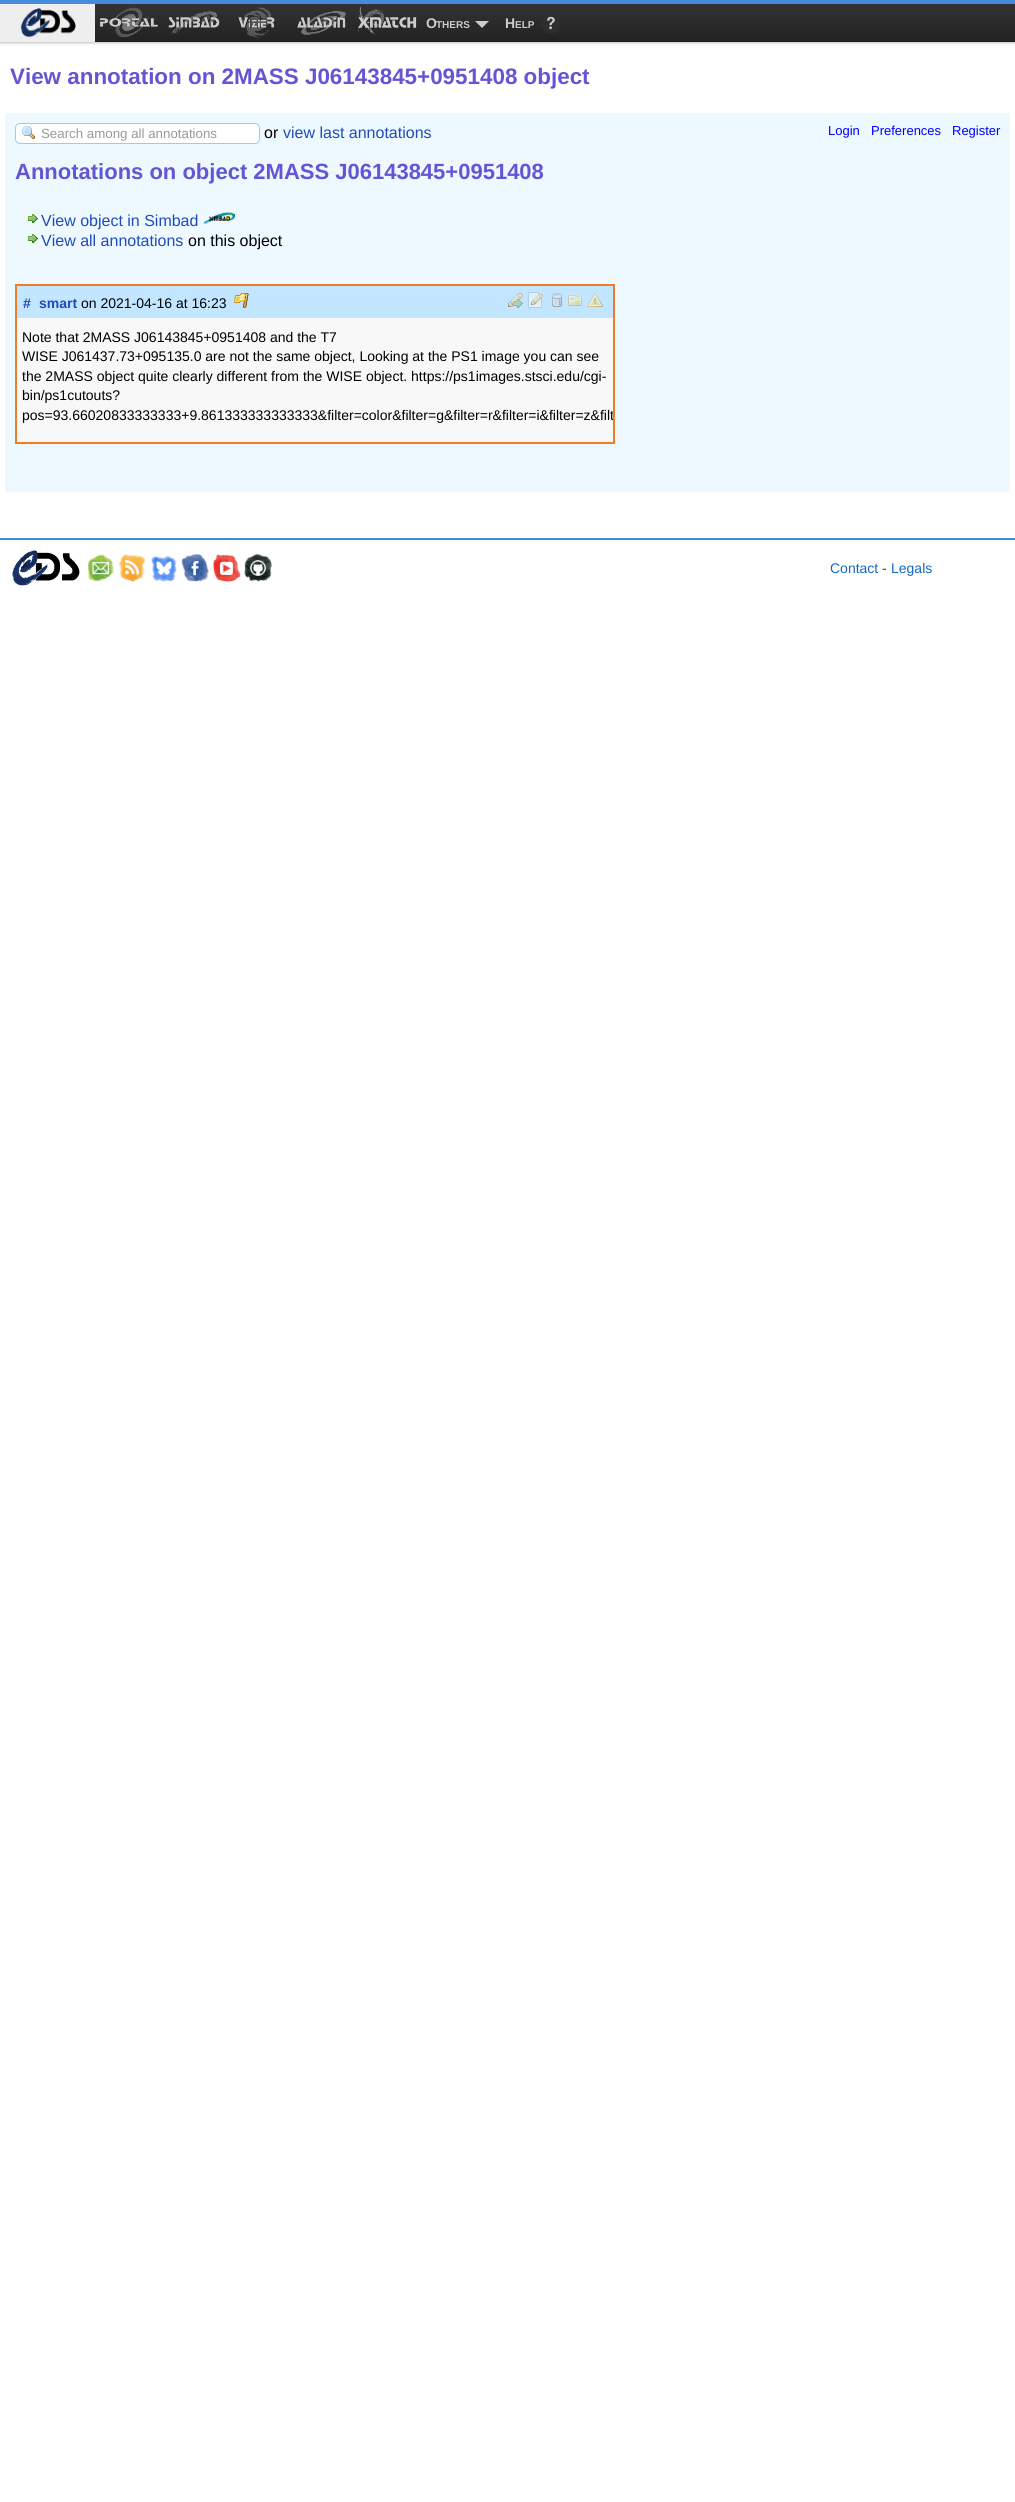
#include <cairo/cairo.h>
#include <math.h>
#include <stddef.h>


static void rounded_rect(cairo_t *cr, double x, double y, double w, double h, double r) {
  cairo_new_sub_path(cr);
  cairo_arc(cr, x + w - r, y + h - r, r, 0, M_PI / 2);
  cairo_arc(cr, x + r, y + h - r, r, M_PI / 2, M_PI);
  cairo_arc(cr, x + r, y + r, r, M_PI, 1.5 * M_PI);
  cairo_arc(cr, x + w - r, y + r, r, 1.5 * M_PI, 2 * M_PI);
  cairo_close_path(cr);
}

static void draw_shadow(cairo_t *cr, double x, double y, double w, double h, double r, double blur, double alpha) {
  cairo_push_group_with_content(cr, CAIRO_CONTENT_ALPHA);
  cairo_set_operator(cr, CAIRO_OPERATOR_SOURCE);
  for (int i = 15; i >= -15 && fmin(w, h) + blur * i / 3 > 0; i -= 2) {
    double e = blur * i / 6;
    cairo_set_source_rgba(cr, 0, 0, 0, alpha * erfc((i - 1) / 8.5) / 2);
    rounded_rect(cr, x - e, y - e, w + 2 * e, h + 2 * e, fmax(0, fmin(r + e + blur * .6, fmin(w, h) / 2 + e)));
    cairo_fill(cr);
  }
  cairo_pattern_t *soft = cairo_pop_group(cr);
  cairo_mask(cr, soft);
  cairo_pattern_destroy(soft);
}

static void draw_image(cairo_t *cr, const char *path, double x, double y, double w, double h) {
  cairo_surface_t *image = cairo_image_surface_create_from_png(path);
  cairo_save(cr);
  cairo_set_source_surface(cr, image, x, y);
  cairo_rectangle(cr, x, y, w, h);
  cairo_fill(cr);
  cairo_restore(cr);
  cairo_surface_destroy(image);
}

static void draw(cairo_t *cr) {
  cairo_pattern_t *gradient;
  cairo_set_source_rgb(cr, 1, 1, 1);
  cairo_paint(cr);
  cairo_set_source_rgb(cr, 0, 0, 0);
  draw_shadow(cr, 0, 1, 1015, 42, 0, 1.5, 0.25);
  gradient = cairo_pattern_create_linear(508, 4, 508, 42);
  cairo_pattern_add_color_stop_rgba(gradient, 0, 51 / 255.0, 51 / 255.0, 51 / 255.0, 1);
  cairo_pattern_add_color_stop_rgba(gradient, 1, 34 / 255.0, 34 / 255.0, 34 / 255.0, 1);
  cairo_set_source(cr, gradient);
  cairo_pattern_destroy(gradient);
  cairo_rectangle(cr, 95, 4, 920, 37);
  cairo_fill(cr);
  cairo_set_source_rgb(cr, 31 / 255.0, 31 / 255.0, 31 / 255.0);
  cairo_rectangle(cr, 95, 41, 920, 1);
  cairo_fill(cr);
  cairo_set_source_rgb(cr, 69 / 255.0, 139 / 255.0, 219 / 255.0);
  cairo_rectangle(cr, 0, 0, 1015, 4);
  cairo_fill(cr);
  cairo_set_source_rgb(cr, 238 / 255.0, 238 / 255.0, 238 / 255.0);
  cairo_rectangle(cr, 0, 4, 95, 38);
  cairo_fill(cr);
  draw_image(cr, "images/1.png", 20, 8, 56, 30);
  draw_image(cr, "images/2.png", 109, 7, 40, 31);
  draw_image(cr, "images/3.png", 100, 18, 58, 9);
  draw_image(cr, "images/4.png", 171, 11, 46, 24);
  draw_image(cr, "images/5.png", 168, 17, 52, 11);
  draw_image(cr, "images/6.png", 242, 7, 30, 31);
  draw_image(cr, "images/7.png", 238, 17, 37, 11);
  draw_image(cr, "images/8.png", 301, 10, 45, 25);
  draw_image(cr, "images/9.png", 297, 17, 49, 11);
  draw_image(cr, "images/10.png", 358, 6, 26, 29);
  draw_image(cr, "images/11.png", 358, 17, 59, 11);
  cairo_set_source_rgb(cr, 204 / 255.0, 204 / 255.0, 204 / 255.0);
  cairo_new_path(cr);
  cairo_move_to(cr, 475, 21);
  cairo_line_to(cr, 489, 21);
  cairo_line_to(cr, 482, 28);
  cairo_close_path(cr);
  cairo_fill(cr);
  draw_image(cr, "images/12.png", 541, 16, 20, 17);
  cairo_set_source_rgb(cr, 237 / 255.0, 248 / 255.0, 1);
  cairo_rectangle(cr, 5, 113, 1005, 379);
  cairo_fill(cr);
  cairo_set_source_rgb(cr, 1, 1, 1);
  rounded_rect(cr, 15, 123, 245, 21, 5);
  cairo_fill(cr);
  draw_image(cr, "images/13.png", 22, 126, 13, 14);
  rounded_rect(cr, 15.5, 123.5, 244, 20, 4.5);
  cairo_set_source_rgb(cr, 140 / 255.0, 208 / 255.0, 1);
  cairo_set_line_width(cr, 1);
  cairo_stroke(cr);
  draw_image(cr, "images/14.png", 28, 214, 10, 10);
  draw_image(cr, "images/15.png", 203, 212, 32, 13);
  draw_image(cr, "images/14.png", 28, 234, 10, 10);
  cairo_rectangle(cr, 16, 285, 598, 158);
  cairo_set_source_rgb(cr, 241 / 255.0, 124 / 255.0, 39 / 255.0);
  cairo_set_line_width(cr, 2);
  cairo_stroke(cr);
  cairo_set_source_rgb(cr, 194 / 255.0, 230 / 255.0, 1);
  cairo_rectangle(cr, 17, 286, 596, 32);
  cairo_fill(cr);
  draw_image(cr, "images/16.png", 234, 293, 15, 15);
  draw_image(cr, "images/17.png", 508, 293, 15, 15);
  draw_image(cr, "images/18.png", 528, 292, 15, 16);
  draw_image(cr, "images/19.png", 552, 293, 10, 14);
  draw_image(cr, "images/20.png", 568, 295, 14, 11);
  draw_image(cr, "images/21.png", 587, 293, 16, 14);
  cairo_set_source_rgb(cr, 248 / 255.0, 248 / 255.0, 248 / 255.0);
  cairo_rectangle(cr, 17, 318, 596, 124);
  cairo_fill(cr);
  cairo_set_source_rgb(cr, 69 / 255.0, 139 / 255.0, 219 / 255.0);
  cairo_rectangle(cr, 0, 538, 1015, 2);
  cairo_fill(cr);
  draw_image(cr, "images/22.png", 12, 550, 68, 36);
  draw_image(cr, "images/23.png", 87, 554, 27, 28);
  draw_image(cr, "images/24.png", 118, 554, 28, 28);
  draw_image(cr, "images/25.png", 151, 555, 26, 27);
  draw_image(cr, "images/26.png", 181, 554, 28, 28);
  draw_image(cr, "images/27.png", 213, 554, 28, 28);
  draw_image(cr, "images/28.png", 244, 554, 28, 28);
  cairo_select_font_face(cr, "Liberation Sans", CAIRO_FONT_SLANT_NORMAL, CAIRO_FONT_WEIGHT_BOLD);
  cairo_set_font_size(cr, 14);
  cairo_set_source_rgb(cr, 204 / 255.0, 204 / 255.0, 204 / 255.0);
  cairo_move_to(cr, 426, 28);
  cairo_show_text(cr, "O");
  cairo_set_font_size(cr, 10);
  cairo_move_to(cr, 436, 28);
  cairo_show_text(cr, "THERS");
  cairo_set_font_size(cr, 14);
  cairo_move_to(cr, 505, 28);
  cairo_show_text(cr, "H");
  cairo_set_font_size(cr, 10);
  cairo_move_to(cr, 515, 28);
  cairo_show_text(cr, "ELP");
  cairo_set_font_size(cr, 22.4);
  cairo_set_source_rgb(cr, 100 / 255.0, 85 / 255.0, 212 / 255.0);
  cairo_move_to(cr, 10, 84);
  cairo_show_text(cr, "View annotation on 2MASS J06143845+0951408 object");
  cairo_select_font_face(cr, "Liberation Sans", CAIRO_FONT_SLANT_NORMAL, CAIRO_FONT_WEIGHT_NORMAL);
  cairo_set_font_size(cr, 13.3);
  cairo_set_source_rgb(cr, 153 / 255.0, 153 / 255.0, 153 / 255.0);
  cairo_move_to(cr, 41, 138);
  cairo_show_text(cr, "Search among all annotations");
  cairo_set_font_size(cr, 16);
  cairo_set_source_rgb(cr, 0, 0, 0);
  cairo_move_to(cr, 264, 138);
  cairo_show_text(cr, "or");
  cairo_set_source_rgb(cr, 31 / 255.0, 75 / 255.0, 188 / 255.0);
  cairo_move_to(cr, 283, 138);
  cairo_show_text(cr, "view last annotations");
  cairo_set_font_size(cr, 13);
  cairo_set_source_rgb(cr, 0, 0, 1);
  cairo_move_to(cr, 828, 135);
  cairo_show_text(cr, "Login");
  cairo_move_to(cr, 871, 135);
  cairo_show_text(cr, "Preferences");
  cairo_move_to(cr, 952, 135);
  cairo_show_text(cr, "Register");
  cairo_select_font_face(cr, "Liberation Sans", CAIRO_FONT_SLANT_NORMAL, CAIRO_FONT_WEIGHT_BOLD);
  cairo_set_font_size(cr, 22);
  cairo_set_source_rgb(cr, 100 / 255.0, 85 / 255.0, 212 / 255.0);
  cairo_move_to(cr, 15, 179);
  cairo_show_text(cr, "Annotations on object 2MASS J06143845+0951408");
  cairo_select_font_face(cr, "Liberation Sans", CAIRO_FONT_SLANT_NORMAL, CAIRO_FONT_WEIGHT_NORMAL);
  cairo_set_font_size(cr, 16);
  cairo_set_source_rgb(cr, 31 / 255.0, 75 / 255.0, 188 / 255.0);
  cairo_move_to(cr, 41, 226);
  cairo_show_text(cr, "View object in Simbad");
  cairo_move_to(cr, 41, 246);
  cairo_show_text(cr, "View all annotations");
  cairo_set_source_rgb(cr, 0, 0, 0);
  cairo_move_to(cr, 188, 246);
  cairo_show_text(cr, "on this object");
  cairo_select_font_face(cr, "Liberation Sans", CAIRO_FONT_SLANT_NORMAL, CAIRO_FONT_WEIGHT_BOLD);
  cairo_set_font_size(cr, 14);
  cairo_set_source_rgb(cr, 31 / 255.0, 75 / 255.0, 188 / 255.0);
  cairo_move_to(cr, 23, 308);
  cairo_show_text(cr, "#");
  cairo_move_to(cr, 39, 308);
  cairo_show_text(cr, "smart");
  cairo_select_font_face(cr, "Liberation Sans", CAIRO_FONT_SLANT_NORMAL, CAIRO_FONT_WEIGHT_NORMAL);
  cairo_set_source_rgb(cr, 0, 0, 0);
  cairo_move_to(cr, 81, 308);
  cairo_show_text(cr, "on 2021-04-16 at 16:23");
  cairo_move_to(cr, 22, 342);
  cairo_show_text(cr, "Note that 2MASS J06143845+0951408 and the T7");
  cairo_move_to(cr, 22, 361);
  cairo_show_text(cr, "WISE J061437.73+095135.0 are not the same object, Looking at the PS1 image you can see");
  cairo_move_to(cr, 22, 381);
  cairo_show_text(cr, "the 2MASS object quite clearly different from the WISE object. https://ps1images.stsci.edu/cgi-");
  cairo_move_to(cr, 22, 400);
  cairo_show_text(cr, "bin/ps1cutouts?");
  cairo_save(cr);
  cairo_rectangle(cr, 17, 318, 596, 118);
  cairo_clip(cr);
  cairo_move_to(cr, 22, 420);
  cairo_show_text(cr, "pos=93.66020833333333+9.861333333333333&filter=color&filter=g&filter=r&filter=i&filter=z&filt");
  cairo_restore(cr);
  cairo_set_source_rgb(cr, 19 / 255.0, 103 / 255.0, 199 / 255.0);
  cairo_move_to(cr, 830, 573);
  cairo_show_text(cr, "Contact");
  cairo_set_source_rgb(cr, 51 / 255.0, 51 / 255.0, 51 / 255.0);
  cairo_move_to(cr, 882, 573);
  cairo_show_text(cr, "-");
  cairo_set_source_rgb(cr, 19 / 255.0, 103 / 255.0, 199 / 255.0);
  cairo_move_to(cr, 891, 573);
  cairo_show_text(cr, "Legals");
}

int main(void) {
  cairo_surface_t *surface = cairo_image_surface_create(CAIRO_FORMAT_RGB24, 1015, 2502);
  cairo_t *cr = cairo_create(surface);
  cairo_font_options_t *options = cairo_font_options_create();
  cairo_font_options_set_hint_metrics(options, CAIRO_HINT_METRICS_OFF);
  cairo_font_options_set_hint_style(options, CAIRO_HINT_STYLE_NONE);
  cairo_set_font_options(cr, options);
  cairo_set_miter_limit(cr, 4);
  draw(cr);
  cairo_surface_write_to_png(surface, "out.png");
  cairo_font_options_destroy(options);
  cairo_destroy(cr);
  cairo_surface_destroy(surface);
  return 0;
}
